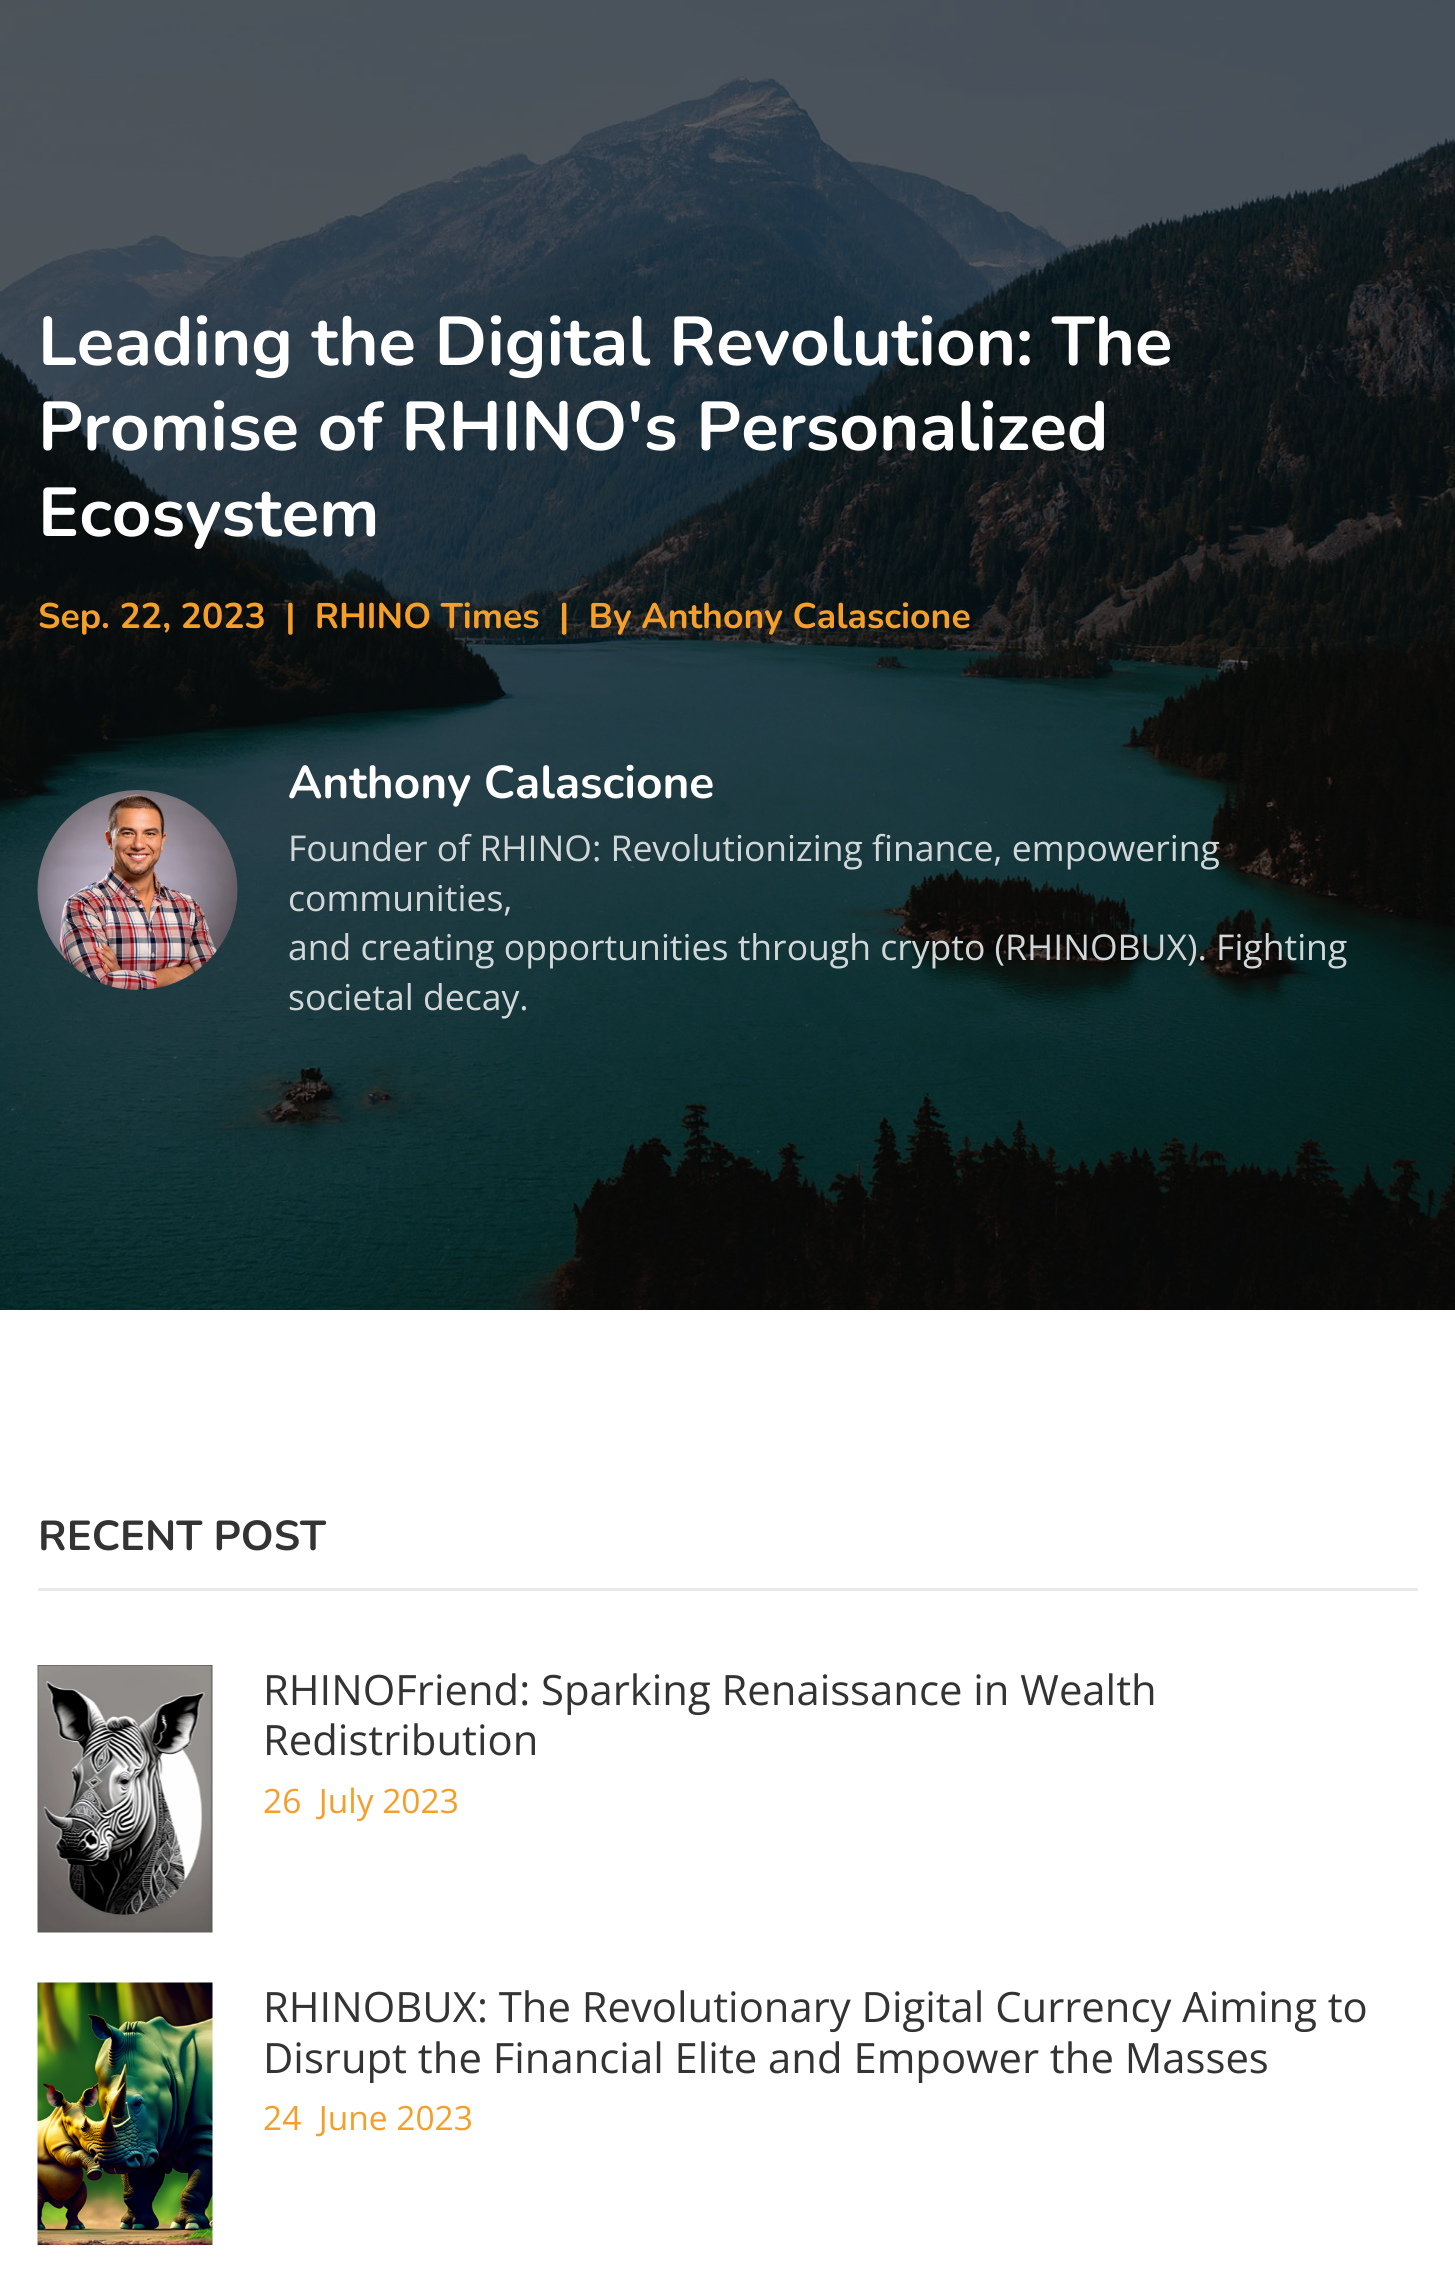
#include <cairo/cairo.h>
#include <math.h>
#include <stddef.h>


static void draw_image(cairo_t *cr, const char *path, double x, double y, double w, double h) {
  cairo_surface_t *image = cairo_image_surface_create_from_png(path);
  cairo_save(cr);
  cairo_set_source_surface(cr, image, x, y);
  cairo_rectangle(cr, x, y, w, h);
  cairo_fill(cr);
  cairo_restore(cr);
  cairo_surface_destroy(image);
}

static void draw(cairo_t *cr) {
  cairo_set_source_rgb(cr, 1, 1, 1);
  cairo_paint(cr);
  cairo_set_source_rgb(cr, 0, 0, 0);
  cairo_rectangle(cr, 0, 0, 1455, 1310);
  cairo_fill(cr);
  draw_image(cr, "images/1.png", 0, 0, 1455, 1310);
  draw_image(cr, "images/2.png", 37, 790, 201, 200);
  cairo_set_source_rgb(cr, 233 / 255.0, 233 / 255.0, 233 / 255.0);
  cairo_rectangle(cr, 38, 1588, 1380, 3);
  cairo_fill(cr);
  draw_image(cr, "images/3.png", 37, 1665, 176, 268);
  draw_image(cr, "images/4.png", 37, 1982, 176, 263);
  cairo_select_font_face(cr, "Nunito", CAIRO_FONT_SLANT_NORMAL, CAIRO_FONT_WEIGHT_BOLD);
  cairo_set_font_size(cr, 69);
  cairo_set_source_rgb(cr, 1, 1, 1);
  cairo_move_to(cr, 38, 365);
  cairo_show_text(cr, "Leading the Digital Revolution: The");
  cairo_move_to(cr, 38, 450);
  cairo_show_text(cr, "Promise of RHINO's Personalized");
  cairo_move_to(cr, 38, 536);
  cairo_show_text(cr, "Ecosystem");
  cairo_set_font_size(cr, 35.55);
  cairo_set_source_rgb(cr, 245 / 255.0, 159 / 255.0, 43 / 255.0);
  cairo_move_to(cr, 38, 628);
  cairo_show_text(cr, "Sep. 22, 2023  |  RHINO Times  |  By Anthony Calascione");
  cairo_set_font_size(cr, 46);
  cairo_set_source_rgb(cr, 1, 1, 1);
  cairo_move_to(cr, 288, 798);
  cairo_show_text(cr, "Anthony Calascione");
  cairo_select_font_face(cr, "Open Sans", CAIRO_FONT_SLANT_NORMAL, CAIRO_FONT_WEIGHT_NORMAL);
  cairo_set_font_size(cr, 35.55);
  cairo_set_source_rgb(cr, 209 / 255.0, 215 / 255.0, 216 / 255.0);
  cairo_move_to(cr, 288, 861);
  cairo_show_text(cr, "Founder of RHINO: Revolutionizing finance, empowering");
  cairo_move_to(cr, 288, 911);
  cairo_show_text(cr, "communities,");
  cairo_move_to(cr, 288, 960);
  cairo_show_text(cr, "and creating opportunities through crypto (RHINOBUX). Fighting");
  cairo_move_to(cr, 288, 1010);
  cairo_show_text(cr, "societal decay.");
  cairo_select_font_face(cr, "Nunito", CAIRO_FONT_SLANT_NORMAL, CAIRO_FONT_WEIGHT_BOLD);
  cairo_set_font_size(cr, 41.8);
  cairo_set_source_rgb(cr, 51 / 255.0, 51 / 255.0, 51 / 255.0);
  cairo_move_to(cr, 38, 1550);
  cairo_show_text(cr, "RECENT POST");
  cairo_select_font_face(cr, "Open Sans", CAIRO_FONT_SLANT_NORMAL, CAIRO_FONT_WEIGHT_NORMAL);
  cairo_move_to(cr, 263, 1705);
  cairo_show_text(cr, "RHINOFriend: Sparking Renaissance in Wealth");
  cairo_move_to(cr, 263, 1755);
  cairo_show_text(cr, "Redistribution");
  cairo_set_font_size(cr, 33.5);
  cairo_set_source_rgb(cr, 245 / 255.0, 159 / 255.0, 43 / 255.0);
  cairo_move_to(cr, 263, 1813);
  cairo_show_text(cr, "26  July 2023");
  cairo_set_font_size(cr, 41.8);
  cairo_set_source_rgb(cr, 51 / 255.0, 51 / 255.0, 51 / 255.0);
  cairo_move_to(cr, 263, 2022);
  cairo_show_text(cr, "RHINOBUX: The Revolutionary Digital Currency Aiming to");
  cairo_move_to(cr, 263, 2073);
  cairo_show_text(cr, "Disrupt the Financial Elite and Empower the Masses");
  cairo_set_font_size(cr, 33.5);
  cairo_set_source_rgb(cr, 245 / 255.0, 159 / 255.0, 43 / 255.0);
  cairo_move_to(cr, 263, 2130);
  cairo_show_text(cr, "24  June 2023");
}

int main(void) {
  cairo_surface_t *surface = cairo_image_surface_create(CAIRO_FORMAT_RGB24, 1455, 2289);
  cairo_t *cr = cairo_create(surface);
  cairo_font_options_t *options = cairo_font_options_create();
  cairo_font_options_set_hint_metrics(options, CAIRO_HINT_METRICS_OFF);
  cairo_font_options_set_hint_style(options, CAIRO_HINT_STYLE_NONE);
  cairo_set_font_options(cr, options);
  cairo_set_miter_limit(cr, 4);
  draw(cr);
  cairo_surface_write_to_png(surface, "out.png");
  cairo_font_options_destroy(options);
  cairo_destroy(cr);
  cairo_surface_destroy(surface);
  return 0;
}
